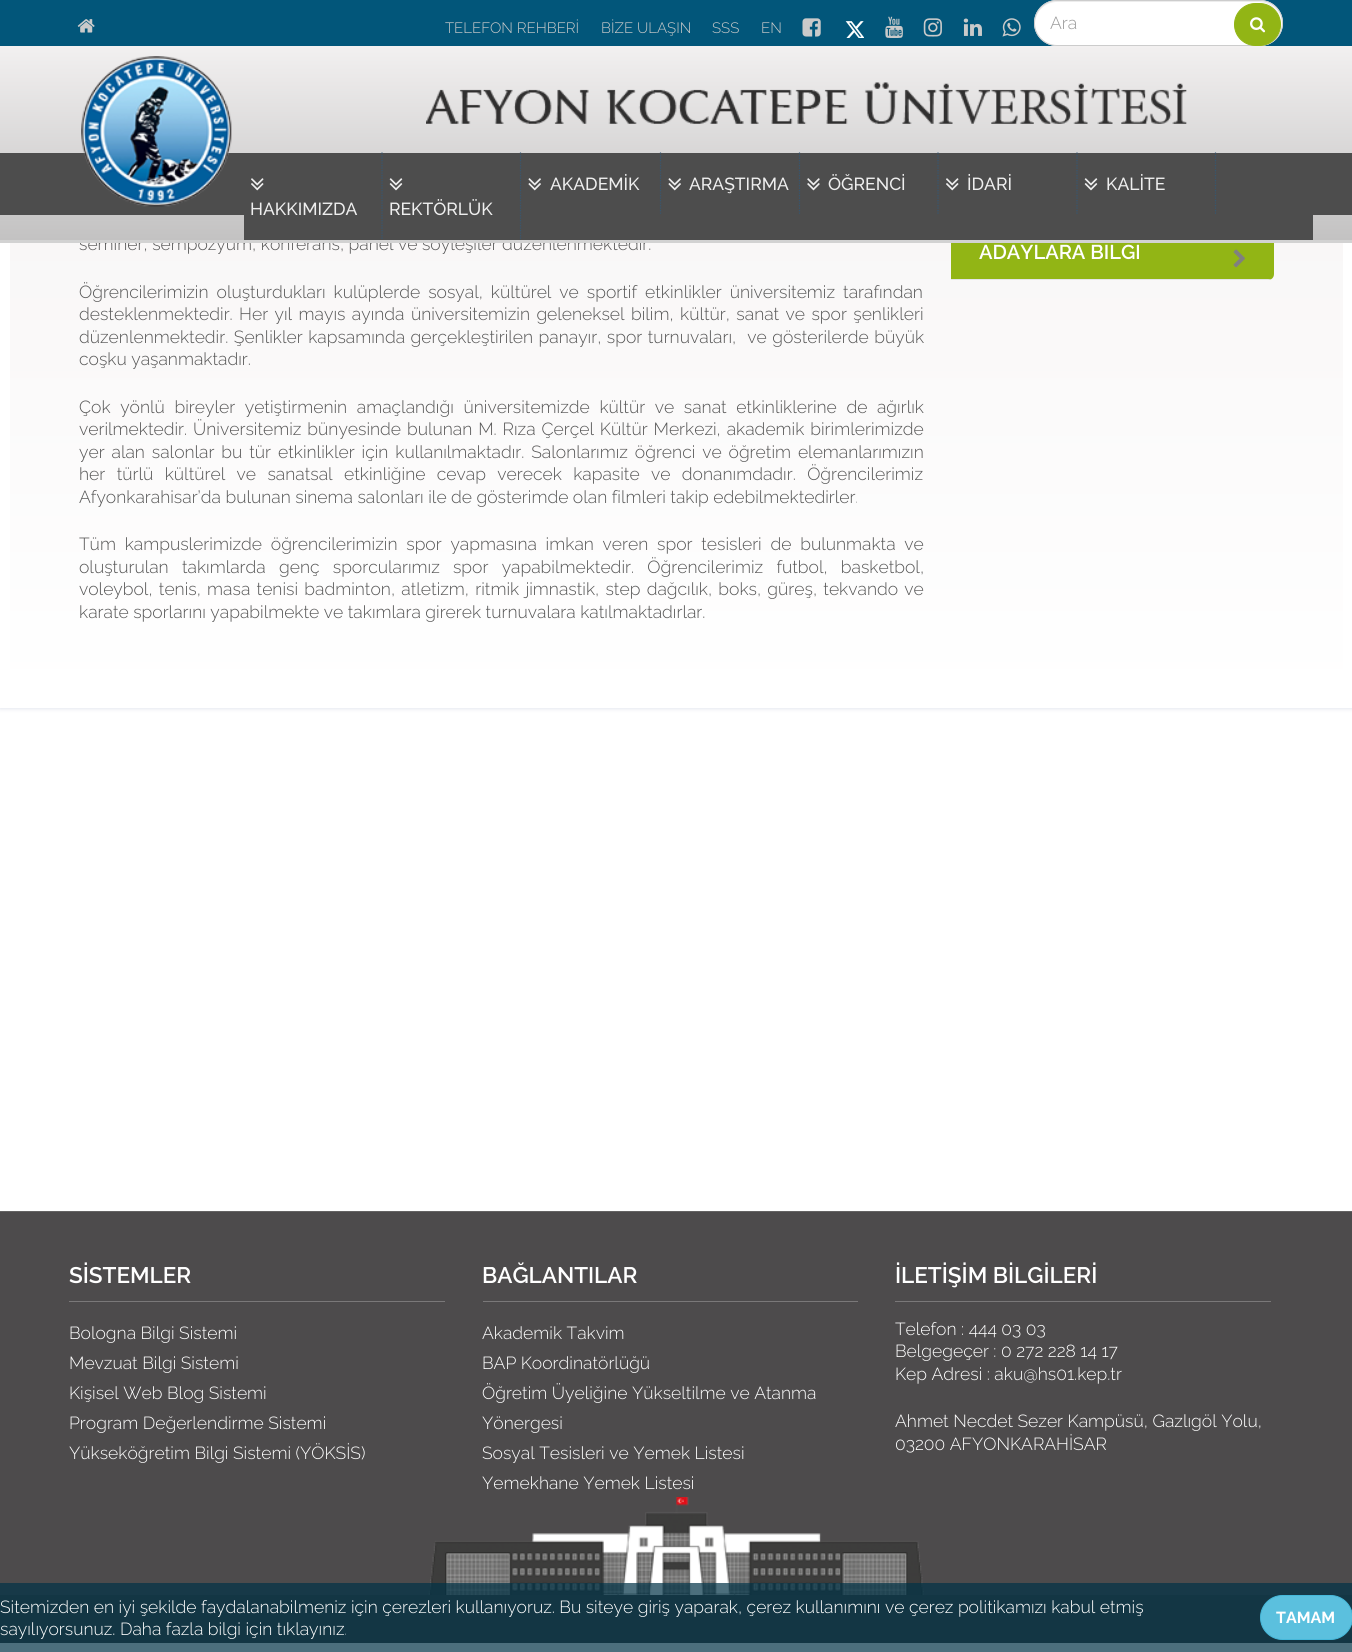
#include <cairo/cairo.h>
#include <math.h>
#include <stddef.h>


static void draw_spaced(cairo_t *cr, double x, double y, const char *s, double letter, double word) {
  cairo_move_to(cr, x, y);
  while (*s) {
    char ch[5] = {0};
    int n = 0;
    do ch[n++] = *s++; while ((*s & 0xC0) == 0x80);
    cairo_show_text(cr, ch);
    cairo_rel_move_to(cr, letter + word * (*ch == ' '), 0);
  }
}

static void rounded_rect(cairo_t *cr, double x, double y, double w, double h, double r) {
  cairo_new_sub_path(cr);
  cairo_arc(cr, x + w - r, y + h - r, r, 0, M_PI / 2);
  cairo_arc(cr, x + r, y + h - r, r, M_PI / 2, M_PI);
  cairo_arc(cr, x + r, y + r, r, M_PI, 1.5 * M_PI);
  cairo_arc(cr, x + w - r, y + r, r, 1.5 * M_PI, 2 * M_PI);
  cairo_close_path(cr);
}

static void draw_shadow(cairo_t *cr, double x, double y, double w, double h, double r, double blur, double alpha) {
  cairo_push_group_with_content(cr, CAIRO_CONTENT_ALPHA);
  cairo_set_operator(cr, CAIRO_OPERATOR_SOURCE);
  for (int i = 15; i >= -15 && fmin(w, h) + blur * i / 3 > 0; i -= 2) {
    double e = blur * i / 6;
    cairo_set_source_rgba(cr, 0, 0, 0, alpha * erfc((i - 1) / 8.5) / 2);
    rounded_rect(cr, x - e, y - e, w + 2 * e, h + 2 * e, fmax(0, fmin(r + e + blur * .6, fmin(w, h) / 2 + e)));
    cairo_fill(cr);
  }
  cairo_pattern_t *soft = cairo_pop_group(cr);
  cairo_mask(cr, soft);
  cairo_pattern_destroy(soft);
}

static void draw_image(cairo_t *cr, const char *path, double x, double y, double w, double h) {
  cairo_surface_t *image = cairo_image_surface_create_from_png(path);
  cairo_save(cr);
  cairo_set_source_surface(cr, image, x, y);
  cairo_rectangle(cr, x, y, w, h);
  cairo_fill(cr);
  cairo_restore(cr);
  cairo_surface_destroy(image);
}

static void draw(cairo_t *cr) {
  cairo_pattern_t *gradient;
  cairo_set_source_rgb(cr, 1, 1, 1);
  cairo_paint(cr);
  cairo_set_source_rgb(cr, 2 / 255.0, 86 / 255.0, 122 / 255.0);
  cairo_rectangle(cr, 0, 0, 1352, 46);
  cairo_fill(cr);
  draw_image(cr, "images/1.png", 77, 19, 18, 14);
  draw_image(cr, "images/2.png", 802, 18, 19, 19);
  draw_image(cr, "images/3.png", 845, 21, 19, 17);
  draw_image(cr, "images/4.png", 885, 16, 18, 22);
  draw_image(cr, "images/5.png", 923, 18, 19, 19);
  draw_image(cr, "images/6.png", 963, 18, 19, 18);
  draw_image(cr, "images/7.png", 1002, 18, 19, 19);
  cairo_set_source_rgb(cr, 1, 1, 1);
  rounded_rect(cr, 1034, 0, 249, 46, 23);
  cairo_fill(cr);
  cairo_set_source_rgb(cr, 236 / 255.0, 236 / 255.0, 236 / 255.0);
  cairo_new_path(cr);
  cairo_move_to(cr, 1057, 2);
  cairo_line_to(cr, 1259, 2);
  cairo_curve_to(cr, 1271, 2, 1281, 12, 1281, 24);
  cairo_line_to(cr, 1281, 23);
  cairo_curve_to(cr, 1281, 11, 1271, 1, 1259, 1);
  cairo_line_to(cr, 1057, 1);
  cairo_curve_to(cr, 1045, 1, 1035, 11, 1035, 23);
  cairo_line_to(cr, 1035, 24);
  cairo_curve_to(cr, 1035, 12, 1045, 2, 1057, 2);
  cairo_close_path(cr);
  cairo_fill(cr);
  rounded_rect(cr, 1034.5, 0.5, 248, 45, 22.5);
  cairo_set_source_rgb(cr, 204 / 255.0, 204 / 255.0, 204 / 255.0);
  cairo_set_line_width(cr, 1);
  cairo_stroke(cr);
  cairo_set_source_rgb(cr, 146 / 255.0, 181 / 255.0, 21 / 255.0);
  rounded_rect(cr, 1234.5, 3.5, 46, 42, 21);
  cairo_fill_preserve(cr);
  cairo_stroke(cr);
  draw_image(cr, "images/8.png", 1250, 17, 16, 16);
  cairo_set_source_rgb(cr, 215 / 255.0, 219 / 255.0, 231 / 255.0);
  draw_shadow(cr, 0, 106, 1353, 602, 0, 2.5, 1);
  gradient = cairo_pattern_create_linear(676, 698, 676, 116);
  cairo_pattern_add_color_stop_rgba(gradient, 0, 1, 1, 1, 1);
  cairo_pattern_add_color_stop_rgba(gradient, 1, 247 / 255.0, 245 / 255.0, 245 / 255.0, 1);
  cairo_set_source(cr, gradient);
  cairo_pattern_destroy(gradient);
  cairo_rectangle(cr, 10, 243, 1333, 455);
  cairo_fill(cr);
  cairo_rectangle(cr, 5, 111, 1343, 592);
  cairo_set_source_rgb(cr, 1, 1, 1);
  cairo_set_line_width(cr, 10);
  cairo_stroke(cr);
  cairo_set_source_rgb(cr, 146 / 255.0, 181 / 255.0, 21 / 255.0);
  cairo_new_path(cr);
  cairo_move_to(cr, 951, 226);
  cairo_line_to(cr, 1274, 226);
  cairo_line_to(cr, 1274, 274);
  cairo_curve_to(cr, 1274, 277.5, 1271.5, 280, 1268, 280);
  cairo_line_to(cr, 951, 280);
  cairo_close_path(cr);
  cairo_fill(cr);
  cairo_save(cr);
  cairo_new_path(cr);
  cairo_move_to(cr, 951, 146);
  cairo_line_to(cr, 1268, 146);
  cairo_curve_to(cr, 1271.5, 146, 1274, 148.5, 1274, 152);
  cairo_line_to(cr, 1274, 274);
  cairo_curve_to(cr, 1274, 277.5, 1271.5, 280, 1268, 280);
  cairo_line_to(cr, 951, 280);
  cairo_close_path(cr);
  cairo_clip(cr);
  cairo_set_source_rgb(cr, 228 / 255.0, 229 / 255.0, 231 / 255.0);
  cairo_rectangle(cr, 951, 279, 323, 1);
  cairo_fill(cr);
  cairo_restore(cr);
  draw_image(cr, "images/15.png", 1233, 249, 12, 19);
  cairo_set_source_rgb(cr, 77 / 255.0, 75 / 255.0, 76 / 255.0);
  cairo_rectangle(cr, 0, 1212, 1352, 383);
  cairo_fill(cr);
  cairo_set_source_rgb(cr, 100 / 255.0, 99 / 255.0, 99 / 255.0);
  cairo_rectangle(cr, 0, 1211, 1352, 1);
  cairo_fill(cr);
  cairo_set_source_rgb(cr, 122 / 255.0, 120 / 255.0, 121 / 255.0);
  cairo_rectangle(cr, 69, 1301, 376, 1);
  cairo_fill(cr);
  cairo_rectangle(cr, 483, 1301, 375, 1);
  cairo_fill(cr);
  cairo_rectangle(cr, 895, 1301, 376, 1);
  cairo_fill(cr);
  draw_image(cr, "images/16.png", 428, 1497, 496, 98);
  cairo_set_source_rgb(cr, 65 / 255.0, 65 / 255.0, 65 / 255.0);
  cairo_rectangle(cr, 0, 1595, 1352, 48);
  cairo_fill(cr);
  cairo_set_source_rgba(cr, 1 / 255.0, 50 / 255.0, 71 / 255.0, 0.7);
  cairo_rectangle(cr, 0, 1583, 1352, 69);
  cairo_fill(cr);
  cairo_set_source_rgb(cr, 91 / 255.0, 192 / 255.0, 222 / 255.0);
  rounded_rect(cr, 1260.5, 1595.5, 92, 44, 22);
  cairo_fill_preserve(cr);
  cairo_set_source_rgb(cr, 70 / 255.0, 184 / 255.0, 218 / 255.0);
  cairo_set_line_width(cr, 1);
  cairo_stroke(cr);
  cairo_select_font_face(cr, "Raleway Light", CAIRO_FONT_SLANT_NORMAL, CAIRO_FONT_WEIGHT_NORMAL);
  cairo_set_font_size(cr, 15);
  cairo_set_source_rgb(cr, 202 / 255.0, 202 / 255.0, 202 / 255.0);
  cairo_move_to(cr, 445, 33);
  cairo_show_text(cr, "TELEFON REHBERİ");
  cairo_move_to(cr, 601, 33);
  cairo_show_text(cr, "BİZE ULAŞIN");
  cairo_move_to(cr, 712, 33);
  cairo_show_text(cr, "SSS");
  cairo_move_to(cr, 761, 33);
  cairo_show_text(cr, "EN");
  cairo_set_font_size(cr, 17.5);
  cairo_set_source_rgb(cr, 153 / 255.0, 153 / 255.0, 153 / 255.0);
  cairo_move_to(cr, 1050, 29);
  cairo_show_text(cr, "Ara");
  cairo_set_source_rgb(cr, 86 / 255.0, 86 / 255.0, 86 / 255.0);
  cairo_move_to(cr, 79, 250);
  cairo_show_text(cr, "seminer, sempozyum, konferans, panel ve söyleşiler düzenlenmektedir.");
  gradient = cairo_pattern_create_linear(676, 240, 676, 0);
  cairo_pattern_add_color_stop_rgba(gradient, 0, 195 / 255.0, 194 / 255.0, 194 / 255.0, 1);
  cairo_pattern_add_color_stop_rgba(gradient, 1, 253 / 255.0, 251 / 255.0, 251 / 255.0, 1);
  cairo_set_source(cr, gradient);
  cairo_pattern_destroy(gradient);
  cairo_rectangle(cr, 0, 46, 1352, 194);
  cairo_fill(cr);
  cairo_set_source_rgb(cr, 77 / 255.0, 77 / 255.0, 77 / 255.0);
  cairo_rectangle(cr, 0, 153, 1352, 62);
  cairo_fill(cr);
  draw_image(cr, "images/9.png", 81, 56, 151, 151);
  cairo_select_font_face(cr, "Raleway Medium", CAIRO_FONT_SLANT_NORMAL, CAIRO_FONT_WEIGHT_NORMAL);
  cairo_set_source_rgb(cr, 238 / 255.0, 238 / 255.0, 238 / 255.0);
  cairo_move_to(cr, 1106, 190);
  cairo_show_text(cr, "KALİTE");
  draw_image(cr, "images/14.png", 1084, 178, 14, 13);
  cairo_new_path(cr);
  cairo_move_to(cr, 1215.5, 152.5);
  cairo_line_to(cr, 1215.5, 215);
  cairo_set_source_rgb(cr, 54 / 255.0, 86 / 255.0, 112 / 255.0);
  cairo_set_line_width(cr, 1.2);
  cairo_set_dash(cr, (double[]){1.25, 1.25}, 2, 0);
  cairo_stroke(cr);
  cairo_set_source_rgb(cr, 238 / 255.0, 238 / 255.0, 238 / 255.0);
  cairo_move_to(cr, 967, 190);
  cairo_show_text(cr, "İDARİ");
  draw_image(cr, "images/13.png", 946, 178, 13, 13);
  cairo_new_path(cr);
  cairo_move_to(cr, 1077, 152.5);
  cairo_line_to(cr, 1077, 215);
  cairo_set_source_rgb(cr, 54 / 255.0, 86 / 255.0, 112 / 255.0);
  cairo_stroke(cr);
  cairo_set_source_rgb(cr, 238 / 255.0, 238 / 255.0, 238 / 255.0);
  cairo_move_to(cr, 828, 190);
  cairo_show_text(cr, "ÖĞRENCİ");
  draw_image(cr, "images/12.png", 807, 178, 13, 13);
  cairo_new_path(cr);
  cairo_move_to(cr, 938, 152.5);
  cairo_line_to(cr, 938, 215);
  cairo_set_source_rgb(cr, 54 / 255.0, 86 / 255.0, 112 / 255.0);
  cairo_stroke(cr);
  cairo_set_source_rgb(cr, 238 / 255.0, 238 / 255.0, 238 / 255.0);
  cairo_move_to(cr, 689, 190);
  cairo_show_text(cr, "ARAŞTIRMA");
  draw_image(cr, "images/11.png", 668, 178, 13, 13);
  cairo_new_path(cr);
  cairo_move_to(cr, 799.5, 152.5);
  cairo_line_to(cr, 799.5, 215);
  cairo_set_source_rgb(cr, 54 / 255.0, 86 / 255.0, 112 / 255.0);
  cairo_stroke(cr);
  cairo_set_source_rgb(cr, 238 / 255.0, 238 / 255.0, 238 / 255.0);
  cairo_move_to(cr, 550, 190);
  cairo_show_text(cr, "AKADEMİK");
  draw_image(cr, "images/11.png", 528, 178, 13, 13);
  cairo_new_path(cr);
  cairo_move_to(cr, 660.5, 152.5);
  cairo_line_to(cr, 660.5, 215);
  cairo_set_source_rgb(cr, 54 / 255.0, 86 / 255.0, 112 / 255.0);
  cairo_stroke(cr);
  cairo_set_source_rgb(cr, 77 / 255.0, 77 / 255.0, 77 / 255.0);
  cairo_rectangle(cr, 244, 215, 1069, 25);
  cairo_fill(cr);
  cairo_set_source_rgb(cr, 238 / 255.0, 238 / 255.0, 238 / 255.0);
  cairo_move_to(cr, 389, 215);
  cairo_show_text(cr, "REKTÖRLÜK");
  draw_image(cr, "images/14.png", 389, 178, 14, 13);
  cairo_new_path(cr);
  cairo_move_to(cr, 520.5, 152.5);
  cairo_line_to(cr, 520.5, 240);
  cairo_set_source_rgb(cr, 54 / 255.0, 86 / 255.0, 112 / 255.0);
  cairo_stroke(cr);
  cairo_set_source_rgb(cr, 238 / 255.0, 238 / 255.0, 238 / 255.0);
  cairo_move_to(cr, 250, 215);
  cairo_show_text(cr, "HAKKIMIZDA");
  draw_image(cr, "images/13.png", 251, 178, 13, 13);
  cairo_new_path(cr);
  cairo_move_to(cr, 382, 152.5);
  cairo_line_to(cr, 382, 240);
  cairo_set_source_rgb(cr, 54 / 255.0, 86 / 255.0, 112 / 255.0);
  cairo_stroke(cr);
  draw_image(cr, "images/10.png", 426, 82, 761, 42);
  cairo_select_font_face(cr, "Raleway Light", CAIRO_FONT_SLANT_NORMAL, CAIRO_FONT_WEIGHT_NORMAL);
  cairo_set_source_rgb(cr, 86 / 255.0, 86 / 255.0, 86 / 255.0);
  draw_spaced(cr, 79, 298, "Öğrencilerimizin oluşturdukları kulüplerde sosyal, kültürel ve sportif etkinlikler üniversitemiz tarafından", 0, 3.5);
  draw_spaced(cr, 79, 320, "desteklenmektedir. Her yıl mayıs ayında üniversitemizin geleneksel bilim, kültür, sanat ve spor şenlikleri", 0, 1.9);
  draw_spaced(cr, 79, 343, "düzenlenmektedir. Şenlikler kapsamında gerçekleştirilen panayır, spor turnuvaları,  ve gösterilerde büyük", 0, 1);
  cairo_move_to(cr, 79, 365);
  cairo_show_text(cr, "coşku yaşanmaktadır.");
  draw_spaced(cr, 79, 413, "Çok yönlü bireyler yetiştirmenin amaçlandığı üniversitemizde kültür ve sanat etkinliklerine de ağırlık", 0, 5.1);
  draw_spaced(cr, 79, 435, "verilmektedir. Üniversitemiz bünyesinde bulunan M. Rıza Çerçel Kültür Merkezi, akademik birimlerimizde", 0, 1.4);
  draw_spaced(cr, 79, 458, "yer alan salonlar bu tür etkinlikler için kullanılmaktadır. Salonlarımız öğrenci ve öğretim elemanlarımızın", 0, 2.4);
  draw_spaced(cr, 79, 480, "her türlü kültürel ve sanatsal etkinliğine cevap verecek kapasite ve donanımdadır. Öğrencilerimiz", 0, 6.9);
  cairo_move_to(cr, 79, 503);
  cairo_show_text(cr, "Afyonkarahisar’da bulunan sinema salonları ile de gösterimde olan filmleri takip edebilmektedirler.");
  draw_spaced(cr, 79, 550, "Tüm kampuslerimizde öğrencilerimizin spor yapmasına imkan veren spor tesisleri de bulunmakta ve", 0, 4.25);
  draw_spaced(cr, 79, 573, "oluşturulan takımlarda genç sporcularımız spor yapabilmektedir. Öğrencilerimiz futbol, basketbol,", 0, 8.75);
  draw_spaced(cr, 79, 595, "voleybol, tenis, masa tenisi badminton, atletizm, ritmik jimnastik, step dağcılık, boks, güreş, tekvando ve", 0, 1.75);
  cairo_move_to(cr, 79, 618);
  cairo_show_text(cr, "karate sporlarını yapabilmekte ve takımlara girerek turnuvalara katılmaktadırlar.");
  cairo_select_font_face(cr, "Raleway SemiBold", CAIRO_FONT_SLANT_NORMAL, CAIRO_FONT_WEIGHT_NORMAL);
  cairo_set_font_size(cr, 20);
  cairo_set_source_rgb(cr, 1, 1, 1);
  cairo_move_to(cr, 979, 259);
  cairo_show_text(cr, "ADAYLARA BİLGİ");
  cairo_set_source_rgb(cr, 210 / 255.0, 210 / 255.0, 210 / 255.0);
  cairo_rectangle(cr, 0, 240, 1352, 3);
  cairo_fill(cr);
  cairo_set_font_size(cr, 22.5);
  cairo_set_source_rgb(cr, 1, 1, 1);
  cairo_move_to(cr, 69, 1283);
  cairo_show_text(cr, "SİSTEMLER");
  cairo_select_font_face(cr, "Raleway Light", CAIRO_FONT_SLANT_NORMAL, CAIRO_FONT_WEIGHT_NORMAL);
  cairo_set_font_size(cr, 17.5);
  cairo_move_to(cr, 69, 1339);
  cairo_show_text(cr, "Bologna Bilgi Sistemi");
  cairo_move_to(cr, 69, 1369);
  cairo_show_text(cr, "Mevzuat Bilgi Sistemi");
  cairo_move_to(cr, 69, 1399);
  cairo_show_text(cr, "Kişisel Web Blog Sistemi");
  cairo_move_to(cr, 69, 1429);
  cairo_show_text(cr, "Program Değerlendirme Sistemi");
  cairo_move_to(cr, 69, 1459);
  cairo_show_text(cr, "Yükseköğretim Bilgi Sistemi (YÖKSİS)");
  cairo_select_font_face(cr, "Raleway SemiBold", CAIRO_FONT_SLANT_NORMAL, CAIRO_FONT_WEIGHT_NORMAL);
  cairo_set_font_size(cr, 22.5);
  cairo_move_to(cr, 482, 1283);
  cairo_show_text(cr, "BAĞLANTILAR");
  cairo_select_font_face(cr, "Raleway Light", CAIRO_FONT_SLANT_NORMAL, CAIRO_FONT_WEIGHT_NORMAL);
  cairo_set_font_size(cr, 17.5);
  cairo_move_to(cr, 482, 1339);
  cairo_show_text(cr, "Akademik Takvim");
  cairo_move_to(cr, 482, 1369);
  cairo_show_text(cr, "BAP Koordinatörlüğü");
  cairo_move_to(cr, 482, 1399);
  cairo_show_text(cr, "Öğretim Üyeliğine Yükseltilme ve Atanma");
  cairo_move_to(cr, 482, 1429);
  cairo_show_text(cr, "Yönergesi");
  cairo_move_to(cr, 482, 1459);
  cairo_show_text(cr, "Sosyal Tesisleri ve Yemek Listesi");
  cairo_move_to(cr, 482, 1489);
  cairo_show_text(cr, "Yemekhane Yemek Listesi");
  cairo_select_font_face(cr, "Raleway SemiBold", CAIRO_FONT_SLANT_NORMAL, CAIRO_FONT_WEIGHT_NORMAL);
  cairo_set_font_size(cr, 22.5);
  cairo_move_to(cr, 895, 1283);
  cairo_show_text(cr, "İLETİŞİM BİLGİLERİ");
  cairo_select_font_face(cr, "Raleway Light", CAIRO_FONT_SLANT_NORMAL, CAIRO_FONT_WEIGHT_NORMAL);
  cairo_set_font_size(cr, 17.5);
  cairo_move_to(cr, 895, 1335);
  cairo_show_text(cr, "Telefon : 444 03 03");
  cairo_move_to(cr, 895, 1357);
  cairo_show_text(cr, "Belgegeçer : 0 272 228 14 17");
  cairo_move_to(cr, 895, 1380);
  cairo_show_text(cr, "Kep Adresi : aku@hs01.kep.tr");
  cairo_move_to(cr, 895, 1427);
  cairo_show_text(cr, "Ahmet Necdet Sezer Kampüsü, Gazlıgöl Yolu,");
  cairo_move_to(cr, 895, 1450);
  cairo_show_text(cr, "03200 AFYONKARAHİSAR");
  cairo_move_to(cr, 0, 1613);
  cairo_show_text(cr, "Sitemizden en iyi şekilde faydalanabilmeniz için çerezleri kullanıyoruz. Bu siteye giriş yaparak, çerez kullanımını ve çerez politikamızı kabul etmiş");
  cairo_move_to(cr, 0, 1635);
  cairo_show_text(cr, "sayılıyorsunuz. Daha fazla bilgi için tıklayınız.");
  cairo_select_font_face(cr, "Raleway", CAIRO_FONT_SLANT_NORMAL, CAIRO_FONT_WEIGHT_BOLD);
  cairo_set_font_size(cr, 16);
  cairo_move_to(cr, 1276, 1623);
  cairo_show_text(cr, "TAMAM");
}

int main(void) {
  cairo_surface_t *surface = cairo_image_surface_create(CAIRO_FORMAT_RGB24, 1352, 1652);
  cairo_t *cr = cairo_create(surface);
  cairo_font_options_t *options = cairo_font_options_create();
  cairo_font_options_set_hint_metrics(options, CAIRO_HINT_METRICS_OFF);
  cairo_font_options_set_hint_style(options, CAIRO_HINT_STYLE_NONE);
  cairo_set_font_options(cr, options);
  cairo_set_miter_limit(cr, 4);
  draw(cr);
  cairo_surface_write_to_png(surface, "out.png");
  cairo_font_options_destroy(options);
  cairo_destroy(cr);
  cairo_surface_destroy(surface);
  return 0;
}
